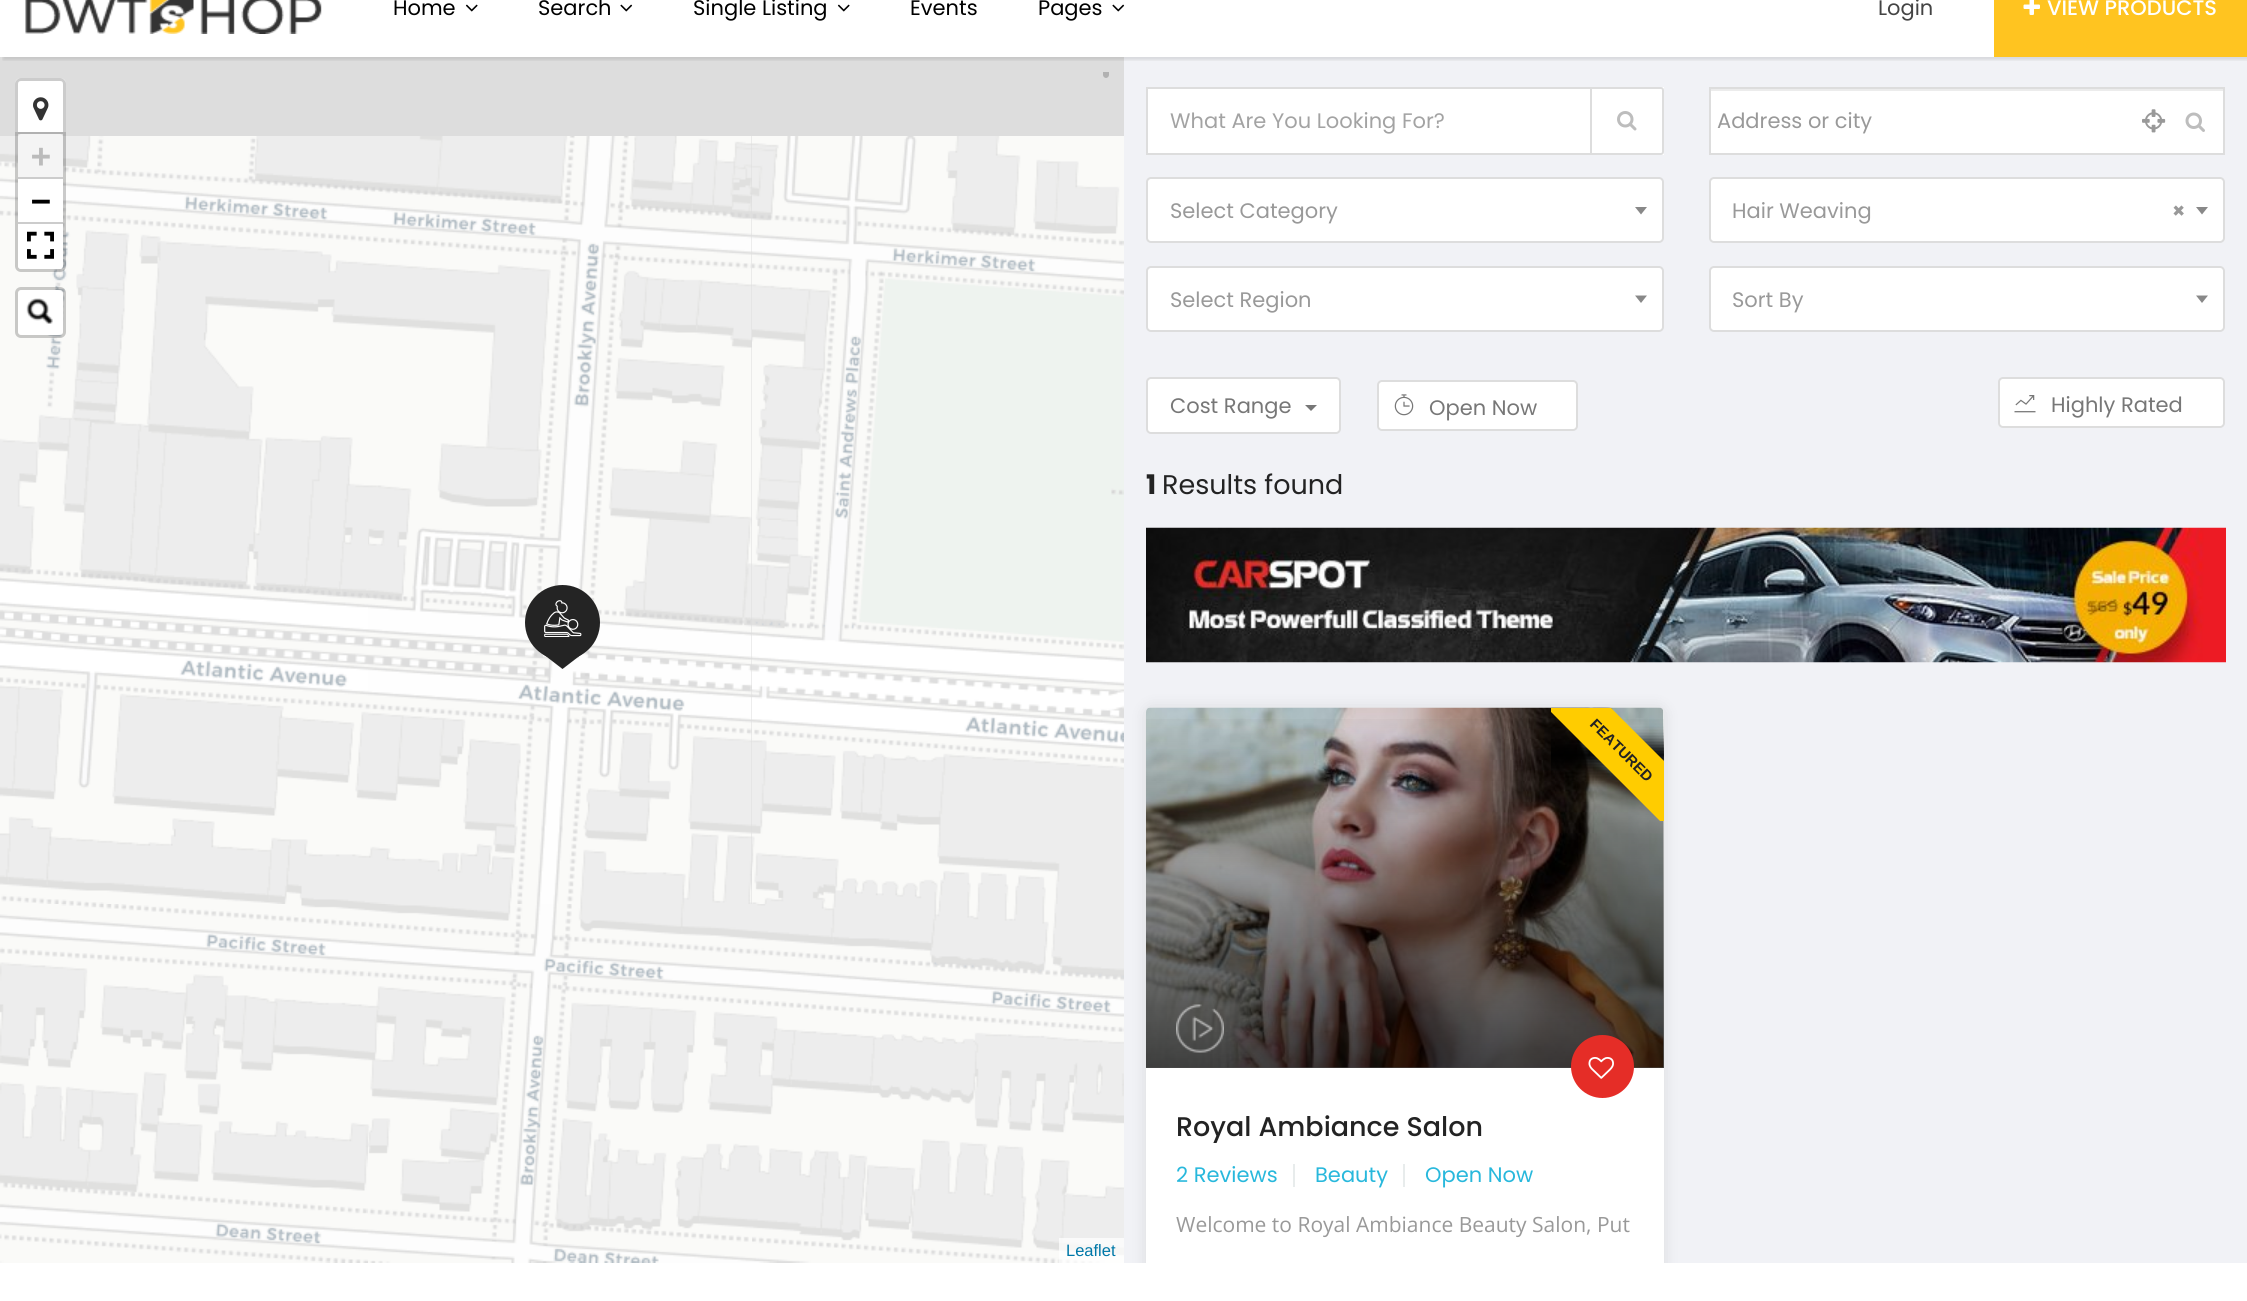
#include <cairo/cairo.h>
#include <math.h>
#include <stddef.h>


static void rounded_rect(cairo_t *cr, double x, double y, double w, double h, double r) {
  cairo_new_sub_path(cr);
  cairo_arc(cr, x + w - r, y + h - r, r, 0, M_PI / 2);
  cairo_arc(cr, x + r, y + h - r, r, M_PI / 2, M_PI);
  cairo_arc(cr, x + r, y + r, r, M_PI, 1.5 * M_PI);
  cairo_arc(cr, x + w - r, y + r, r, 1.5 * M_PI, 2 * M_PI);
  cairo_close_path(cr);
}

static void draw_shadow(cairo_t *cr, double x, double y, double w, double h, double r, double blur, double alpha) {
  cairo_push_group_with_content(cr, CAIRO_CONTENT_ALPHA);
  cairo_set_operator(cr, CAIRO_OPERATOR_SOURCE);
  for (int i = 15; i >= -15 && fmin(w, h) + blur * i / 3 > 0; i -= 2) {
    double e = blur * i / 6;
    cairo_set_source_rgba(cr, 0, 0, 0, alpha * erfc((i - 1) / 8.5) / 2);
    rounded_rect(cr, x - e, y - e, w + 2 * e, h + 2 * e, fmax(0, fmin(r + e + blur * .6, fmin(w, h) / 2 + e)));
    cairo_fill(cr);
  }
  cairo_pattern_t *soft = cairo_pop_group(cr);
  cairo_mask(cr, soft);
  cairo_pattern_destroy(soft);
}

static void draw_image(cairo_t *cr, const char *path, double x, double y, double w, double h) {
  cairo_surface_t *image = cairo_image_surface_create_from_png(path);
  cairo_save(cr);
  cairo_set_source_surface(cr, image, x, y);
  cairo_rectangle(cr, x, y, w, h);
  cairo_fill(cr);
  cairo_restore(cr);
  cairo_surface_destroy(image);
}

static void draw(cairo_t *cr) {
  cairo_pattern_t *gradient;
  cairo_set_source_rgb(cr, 1, 1, 1);
  cairo_paint(cr);
  cairo_set_source_rgb(cr, 241 / 255.0, 242 / 255.0, 246 / 255.0);
  cairo_rectangle(cr, 1124, 57, 1123, 1206);
  cairo_fill(cr);
  cairo_save(cr);
  cairo_rectangle(cr, 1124, 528, 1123, 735);
  cairo_clip(cr);
  cairo_set_source_rgb(cr, 0, 0, 0);
  draw_shadow(cr, 1146, 708, 518, 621, 5, 7.5, 0.1);
  cairo_restore(cr);
  cairo_set_source_rgb(cr, 221 / 255.0, 221 / 255.0, 221 / 255.0);
  cairo_rectangle(cr, 0, 57, 1124, 847);
  cairo_fill(cr);
  cairo_save(cr);
  cairo_rectangle(cr, 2, 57, 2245, 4);
  cairo_clip(cr);
  cairo_set_source_rgb(cr, 0, 0, 0);
  draw_shadow(cr, 3, -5, 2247, 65, 0, 1.5, 0.1);
  cairo_restore(cr);
  draw_image(cr, "images/1.png", 25, 0, 297, 34);
  draw_image(cr, "images/2.png", 465, 4, 13, 8);
  draw_image(cr, "images/3.png", 620, 4, 13, 8);
  draw_image(cr, "images/2.png", 837, 4, 13, 8);
  draw_image(cr, "images/3.png", 1112, 4, 13, 8);
  cairo_set_source_rgb(cr, 1, 196 / 255.0, 32 / 255.0);
  cairo_rectangle(cr, 1994, 0, 253, 57);
  cairo_fill(cr);
  draw_image(cr, "images/4.png", 2023, 0, 17, 15);
  draw_image(cr, "images/6.png", 0, 136, 368, 384);
  cairo_new_path(cr);
  cairo_move_to(cr, 16.5, 132.5);
  cairo_line_to(cr, 64.5, 132.5);
  cairo_line_to(cr, 64.5, 266);
  cairo_curve_to(cr, 64.5, 268.5, 62.5, 270.5, 60, 270.5);
  cairo_line_to(cr, 21, 270.5);
  cairo_curve_to(cr, 18.5, 270.5, 16.5, 268.5, 16.5, 266);
  cairo_close_path(cr);
  cairo_set_source_rgba(cr, 0, 0, 0, 0.2);
  cairo_set_line_width(cr, 3);
  cairo_stroke(cr);
  cairo_set_source_rgb(cr, 1, 1, 1);
  cairo_new_path(cr);
  cairo_move_to(cr, 21, 78);
  cairo_line_to(cr, 60, 78);
  cairo_curve_to(cr, 63.5, 78, 66, 80.5, 66, 84);
  cairo_line_to(cr, 66, 132);
  cairo_line_to(cr, 15, 132);
  cairo_line_to(cr, 15, 84);
  cairo_curve_to(cr, 15, 80.5, 17.5, 78, 21, 78);
  cairo_close_path(cr);
  cairo_fill(cr);
  cairo_set_source_rgba(cr, 0, 0, 0, 0.2);
  cairo_set_fill_rule(cr, CAIRO_FILL_RULE_EVEN_ODD);
  cairo_new_path(cr);
  cairo_move_to(cr, 21, 78);
  cairo_line_to(cr, 60, 78);
  cairo_curve_to(cr, 63, 78, 66, 81, 66, 84);
  cairo_line_to(cr, 66, 132);
  cairo_line_to(cr, 15, 132);
  cairo_line_to(cr, 15, 84);
  cairo_curve_to(cr, 15, 81, 18, 78, 21, 78);
  cairo_close_path(cr);
  cairo_move_to(cr, 21, 81);
  cairo_line_to(cr, 60, 81);
  cairo_curve_to(cr, 62, 81, 63, 82, 63, 84);
  cairo_line_to(cr, 63, 132);
  cairo_line_to(cr, 18, 132);
  cairo_line_to(cr, 18, 84);
  cairo_curve_to(cr, 18, 82, 19, 81, 21, 81);
  cairo_close_path(cr);
  cairo_fill(cr);
  draw_image(cr, "images/5.png", 33, 97, 16, 24);
  draw_image(cr, "images/7.png", 368, 136, 384, 384);
  draw_image(cr, "images/8.png", 752, 136, 372, 384);
  draw_image(cr, "images/9.png", 0, 520, 368, 384);
  draw_image(cr, "images/10.png", 368, 520, 384, 384);
  draw_image(cr, "images/11.png", 752, 520, 372, 384);
  draw_image(cr, "images/12.png", 0, 904, 368, 359);
  draw_image(cr, "images/13.png", 368, 904, 384, 359);
  draw_image(cr, "images/14.png", 752, 904, 372, 359);
  cairo_set_source_rgb(cr, 36 / 255.0, 36 / 255.0, 36 / 255.0);
  cairo_arc(cr, 562.5, 622.5, 33.5, 0, 2 * M_PI);
  cairo_fill_preserve(cr);
  cairo_set_line_width(cr, 8);
  cairo_stroke(cr);
  draw_image(cr, "images/15.png", 544, 600, 38, 37);
  cairo_set_fill_rule(cr, CAIRO_FILL_RULE_WINDING);
  cairo_new_path(cr);
  cairo_move_to(cr, 543, 654);
  cairo_line_to(cr, 582, 654);
  cairo_line_to(cr, 562.5, 669);
  cairo_close_path(cr);
  cairo_fill(cr);
  cairo_set_source_rgb(cr, 177 / 255.0, 177 / 255.0, 177 / 255.0);
  cairo_new_path(cr);
  cairo_move_to(cr, 1103, 72);
  cairo_line_to(cr, 1109, 72);
  cairo_line_to(cr, 1109, 75);
  cairo_curve_to(cr, 1109, 76.5, 1107.5, 78, 1106, 78);
  cairo_curve_to(cr, 1104.5, 78, 1103, 76.5, 1103, 75);
  cairo_close_path(cr);
  cairo_fill(cr);
  cairo_set_source_rgb(cr, 244 / 255.0, 244 / 255.0, 244 / 255.0);
  cairo_new_path(cr);
  cairo_move_to(cr, 21, 134);
  cairo_line_to(cr, 60, 134);
  cairo_curve_to(cr, 61.5, 134, 63, 135.5, 63, 137);
  cairo_line_to(cr, 63, 179);
  cairo_line_to(cr, 18, 179);
  cairo_line_to(cr, 18, 137);
  cairo_curve_to(cr, 18, 135.5, 19.5, 134, 21, 134);
  cairo_close_path(cr);
  cairo_fill(cr);
  cairo_set_source_rgb(cr, 204 / 255.0, 204 / 255.0, 204 / 255.0);
  cairo_rectangle(cr, 18, 177, 45, 2);
  cairo_fill(cr);
  cairo_set_source_rgb(cr, 1, 1, 1);
  cairo_rectangle(cr, 18, 179, 45, 43);
  cairo_fill(cr);
  cairo_set_source_rgb(cr, 204 / 255.0, 204 / 255.0, 204 / 255.0);
  cairo_rectangle(cr, 18, 222, 45, 2);
  cairo_fill(cr);
  cairo_set_source_rgb(cr, 1, 1, 1);
  cairo_new_path(cr);
  cairo_move_to(cr, 18, 224);
  cairo_line_to(cr, 63, 224);
  cairo_line_to(cr, 63, 266);
  cairo_curve_to(cr, 63, 267.5, 61.5, 269, 60, 269);
  cairo_line_to(cr, 21, 269);
  cairo_curve_to(cr, 19.5, 269, 18, 267.5, 18, 266);
  cairo_close_path(cr);
  cairo_fill(cr);
  draw_image(cr, "images/16.png", 27, 231, 27, 28);
  cairo_set_source_rgba(cr, 1, 1, 1, 0.8);
  rounded_rect(cr, 18, 290, 45, 45, 3);
  cairo_fill(cr);
  rounded_rect(cr, 16.5, 288.5, 48, 48, 4.5);
  cairo_set_source_rgba(cr, 0, 0, 0, 0.2);
  cairo_set_line_width(cr, 3);
  cairo_stroke(cr);
  cairo_set_source_rgb(cr, 1, 1, 1);
  rounded_rect(cr, 18, 290, 45, 45, 6);
  cairo_fill(cr);
  draw_image(cr, "images/17.png", 26, 298, 27, 26);
  cairo_set_source_rgba(cr, 1, 1, 1, 0.7);
  cairo_rectangle(cr, 1059, 1238, 65, 25);
  cairo_fill(cr);
  cairo_set_source_rgb(cr, 1, 1, 1);
  cairo_rectangle(cr, 1592, 87, 72, 68);
  cairo_fill(cr);
  cairo_new_path(cr);
  cairo_move_to(cr, 1591, 88);
  cairo_line_to(cr, 1661, 88);
  cairo_curve_to(cr, 1662, 88, 1663, 89, 1663, 90);
  cairo_line_to(cr, 1663, 152);
  cairo_curve_to(cr, 1663, 153, 1662, 154, 1661, 154);
  cairo_line_to(cr, 1591, 154);
  cairo_close_path(cr);
  cairo_set_source_rgb(cr, 221 / 255.0, 221 / 255.0, 221 / 255.0);
  cairo_set_line_width(cr, 2);
  cairo_stroke(cr);
  cairo_set_source_rgb(cr, 1, 1, 1);
  cairo_rectangle(cr, 1147, 88, 444, 66);
  cairo_fill_preserve(cr);
  cairo_set_source_rgb(cr, 221 / 255.0, 221 / 255.0, 221 / 255.0);
  cairo_stroke(cr);
  draw_image(cr, "images/18.png", 1617, 111, 20, 20);
  cairo_set_source_rgb(cr, 1, 1, 1);
  cairo_rectangle(cr, 1711, 91, 512, 62);
  cairo_fill(cr);
  cairo_set_source_rgb(cr, 236 / 255.0, 236 / 255.0, 236 / 255.0);
  cairo_rectangle(cr, 1710, 89, 513, 2);
  cairo_fill(cr);
  cairo_rectangle(cr, 1710, 88, 514, 66);
  cairo_set_source_rgb(cr, 221 / 255.0, 221 / 255.0, 221 / 255.0);
  cairo_stroke(cr);
  draw_image(cr, "images/19.png", 2142, 109, 24, 24);
  draw_image(cr, "images/20.png", 2185, 112, 20, 20);
  cairo_set_source_rgb(cr, 1, 1, 1);
  rounded_rect(cr, 1147, 178, 516, 64, 4);
  cairo_fill_preserve(cr);
  cairo_set_source_rgb(cr, 221 / 255.0, 221 / 255.0, 221 / 255.0);
  cairo_stroke(cr);
  cairo_set_source_rgb(cr, 136 / 255.0, 136 / 255.0, 136 / 255.0);
  cairo_new_path(cr);
  cairo_move_to(cr, 1635, 207);
  cairo_line_to(cr, 1647, 207);
  cairo_line_to(cr, 1641, 214.5);
  cairo_close_path(cr);
  cairo_fill(cr);
  cairo_set_source_rgb(cr, 1, 1, 1);
  rounded_rect(cr, 1710, 178, 514, 64, 4);
  cairo_fill_preserve(cr);
  cairo_set_source_rgb(cr, 221 / 255.0, 221 / 255.0, 221 / 255.0);
  cairo_stroke(cr);
  cairo_set_source_rgb(cr, 136 / 255.0, 136 / 255.0, 136 / 255.0);
  cairo_new_path(cr);
  cairo_move_to(cr, 2196, 207);
  cairo_line_to(cr, 2208, 207);
  cairo_line_to(cr, 2202, 214.5);
  cairo_close_path(cr);
  cairo_fill(cr);
  cairo_set_source_rgb(cr, 1, 1, 1);
  rounded_rect(cr, 1147, 267, 516, 64, 4);
  cairo_fill_preserve(cr);
  cairo_set_source_rgb(cr, 221 / 255.0, 221 / 255.0, 221 / 255.0);
  cairo_stroke(cr);
  cairo_set_source_rgb(cr, 136 / 255.0, 136 / 255.0, 136 / 255.0);
  cairo_new_path(cr);
  cairo_move_to(cr, 1635, 295.5);
  cairo_line_to(cr, 1647, 295.5);
  cairo_line_to(cr, 1641, 303);
  cairo_close_path(cr);
  cairo_fill(cr);
  cairo_set_source_rgb(cr, 1, 1, 1);
  rounded_rect(cr, 1710, 267, 514, 64, 4);
  cairo_fill_preserve(cr);
  cairo_set_source_rgb(cr, 221 / 255.0, 221 / 255.0, 221 / 255.0);
  cairo_stroke(cr);
  cairo_set_source_rgb(cr, 136 / 255.0, 136 / 255.0, 136 / 255.0);
  cairo_new_path(cr);
  cairo_move_to(cr, 2196, 295.5);
  cairo_line_to(cr, 2208, 295.5);
  cairo_line_to(cr, 2202, 303);
  cairo_close_path(cr);
  cairo_fill(cr);
  cairo_set_source_rgb(cr, 1, 1, 1);
  rounded_rect(cr, 1147, 378, 193, 55, 4);
  cairo_fill_preserve(cr);
  cairo_set_source_rgb(cr, 221 / 255.0, 221 / 255.0, 221 / 255.0);
  cairo_stroke(cr);
  cairo_set_source_rgb(cr, 119 / 255.0, 119 / 255.0, 119 / 255.0);
  cairo_new_path(cr);
  cairo_move_to(cr, 1305, 405);
  cairo_line_to(cr, 1317, 405);
  cairo_line_to(cr, 1311, 411);
  cairo_close_path(cr);
  cairo_fill(cr);
  cairo_set_source_rgb(cr, 1, 1, 1);
  rounded_rect(cr, 1378, 381, 199, 49, 4);
  cairo_fill_preserve(cr);
  cairo_set_source_rgb(cr, 221 / 255.0, 221 / 255.0, 221 / 255.0);
  cairo_stroke(cr);
  draw_image(cr, "images/21.png", 1394, 394, 20, 22);
  cairo_set_source_rgb(cr, 1, 1, 1);
  rounded_rect(cr, 1999, 378, 225, 49, 4);
  cairo_fill_preserve(cr);
  cairo_set_source_rgb(cr, 221 / 255.0, 221 / 255.0, 221 / 255.0);
  cairo_stroke(cr);
  draw_image(cr, "images/22.png", 2014, 395, 22, 18);
  draw_image(cr, "images/23.png", 1146, 527, 1080, 136);
  cairo_set_source_rgb(cr, 1, 1, 1);
  cairo_new_path(cr);
  cairo_move_to(cr, 1151, 708);
  cairo_line_to(cr, 1659, 708);
  cairo_curve_to(cr, 1662, 708, 1664, 710, 1664, 713);
  cairo_line_to(cr, 1664, 1263);
  cairo_line_to(cr, 1146, 1263);
  cairo_line_to(cr, 1146, 713);
  cairo_curve_to(cr, 1146, 710, 1148, 708, 1151, 708);
  cairo_close_path(cr);
  cairo_fill(cr);
  draw_image(cr, "images/24.png", 1146, 707, 518, 361);
  gradient = cairo_pattern_create_linear(1405, 708, 1405, 1068);
  cairo_pattern_add_color_stop_rgba(gradient, 0, 0, 0, 0, 0);
  cairo_pattern_add_color_stop_rgba(gradient, 1, 0, 0, 0, 0.7);
  cairo_set_source(cr, gradient);
  cairo_pattern_destroy(gradient);
  cairo_rectangle(cr, 1146, 719, 518, 349);
  cairo_fill(cr);
  cairo_save(cr);
  cairo_rectangle(cr, 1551, 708, 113, 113);
  cairo_clip(cr);
  cairo_set_source_rgb(cr, 0, 0, 0);
  draw_shadow(cr, 1539, 743, 167, 24, 0, 9, 1);
  cairo_restore(cr);
  cairo_save(cr);
  cairo_rectangle(cr, 1551, 708, 113, 113);
  cairo_clip(cr);
  cairo_set_source_rgb(cr, 1, 204 / 255.0, 0);
  cairo_new_path(cr);
  cairo_move_to(cr, 1664, 825);
  cairo_line_to(cr, 1547, 708);
  cairo_line_to(cr, 1611, 708);
  cairo_line_to(cr, 1664, 761);
  cairo_close_path(cr);
  cairo_fill(cr);
  cairo_restore(cr);
  draw_image(cr, "images/25.png", 1176, 1004, 48, 49);
  cairo_set_source_rgb(cr, 229 / 255.0, 45 / 255.0, 39 / 255.0);
  cairo_arc(cr, 1602.5, 1066.5, 31.5, 0, 2 * M_PI);
  cairo_fill(cr);
  draw_image(cr, "images/26.png", 1588, 1057, 26, 22);
  cairo_set_source_rgb(cr, 232 / 255.0, 236 / 255.0, 236 / 255.0);
  cairo_rectangle(cr, 1293, 1164, 2, 23);
  cairo_fill(cr);
  cairo_rectangle(cr, 1403, 1164, 2, 23);
  cairo_fill(cr);
  cairo_select_font_face(cr, "Poppins", CAIRO_FONT_SLANT_NORMAL, CAIRO_FONT_WEIGHT_NORMAL);
  cairo_set_font_size(cr, 21);
  cairo_set_source_rgb(cr, 0, 0, 0);
  cairo_move_to(cr, 393, 15);
  cairo_show_text(cr, "Home");
  cairo_move_to(cr, 538, 15);
  cairo_show_text(cr, "Search");
  cairo_move_to(cr, 693, 15);
  cairo_show_text(cr, "Single Listing");
  cairo_move_to(cr, 910, 15);
  cairo_show_text(cr, "Events");
  cairo_move_to(cr, 1038, 15);
  cairo_show_text(cr, "Pages");
  cairo_set_source_rgb(cr, 68 / 255.0, 68 / 255.0, 68 / 255.0);
  cairo_move_to(cr, 1878, 15);
  cairo_show_text(cr, "Login");
  cairo_select_font_face(cr, "Poppins Medium", CAIRO_FONT_SLANT_NORMAL, CAIRO_FONT_WEIGHT_NORMAL);
  cairo_set_source_rgb(cr, 1, 1, 1);
  cairo_move_to(cr, 2047, 15);
  cairo_show_text(cr, "VIEW PRODUCTS");
  cairo_select_font_face(cr, "DejaVu Sans Mono", CAIRO_FONT_SLANT_NORMAL, CAIRO_FONT_WEIGHT_BOLD);
  cairo_set_font_size(cr, 33);
  cairo_set_source_rgb(cr, 187 / 255.0, 187 / 255.0, 187 / 255.0);
  cairo_move_to(cr, 31, 167);
  cairo_show_text(cr, "+");
  cairo_set_source_rgb(cr, 0, 0, 0);
  cairo_move_to(cr, 31, 212);
  cairo_show_text(cr, "−");
  cairo_select_font_face(cr, "Liberation Sans", CAIRO_FONT_SLANT_NORMAL, CAIRO_FONT_WEIGHT_NORMAL);
  cairo_set_font_size(cr, 16.5);
  cairo_set_source_rgb(cr, 0, 120 / 255.0, 168 / 255.0);
  cairo_move_to(cr, 1066, 1256);
  cairo_show_text(cr, "Leaflet");
  cairo_select_font_face(cr, "Poppins", CAIRO_FONT_SLANT_NORMAL, CAIRO_FONT_WEIGHT_NORMAL);
  cairo_set_font_size(cr, 21);
  cairo_set_source_rgb(cr, 163 / 255.0, 163 / 255.0, 163 / 255.0);
  cairo_move_to(cr, 1170, 128);
  cairo_show_text(cr, "What Are You Looking For?");
  cairo_set_source_rgb(cr, 153 / 255.0, 153 / 255.0, 153 / 255.0);
  cairo_move_to(cr, 1717, 128);
  cairo_show_text(cr, "Address or city");
  cairo_move_to(cr, 1170, 218);
  cairo_show_text(cr, "Select Category");
  cairo_move_to(cr, 1732, 218);
  cairo_show_text(cr, "Hair Weaving");
  cairo_select_font_face(cr, "Poppins", CAIRO_FONT_SLANT_NORMAL, CAIRO_FONT_WEIGHT_BOLD);
  cairo_move_to(cr, 2172, 218);
  cairo_show_text(cr, "×");
  cairo_select_font_face(cr, "Poppins", CAIRO_FONT_SLANT_NORMAL, CAIRO_FONT_WEIGHT_NORMAL);
  cairo_move_to(cr, 1170, 307);
  cairo_show_text(cr, "Select Region");
  cairo_move_to(cr, 1732, 307);
  cairo_show_text(cr, "Sort By");
  cairo_set_source_rgb(cr, 119 / 255.0, 119 / 255.0, 119 / 255.0);
  cairo_move_to(cr, 1170, 413);
  cairo_show_text(cr, "Cost Range");
  cairo_move_to(cr, 1429, 415);
  cairo_show_text(cr, "Open Now");
  cairo_move_to(cr, 2051, 412);
  cairo_show_text(cr, "Highly Rated");
  cairo_select_font_face(cr, "Poppins", CAIRO_FONT_SLANT_NORMAL, CAIRO_FONT_WEIGHT_BOLD);
  cairo_set_font_size(cr, 27);
  cairo_set_source_rgb(cr, 35 / 255.0, 35 / 255.0, 35 / 255.0);
  cairo_move_to(cr, 1146, 494);
  cairo_show_text(cr, "1");
  cairo_select_font_face(cr, "Poppins", CAIRO_FONT_SLANT_NORMAL, CAIRO_FONT_WEIGHT_NORMAL);
  cairo_move_to(cr, 1162, 494);
  cairo_show_text(cr, "Results found");
  cairo_select_font_face(cr, "Liberation Sans", CAIRO_FONT_SLANT_NORMAL, CAIRO_FONT_WEIGHT_BOLD);
  cairo_set_font_size(cr, 15);
  cairo_save(cr);
  cairo_translate(cr, 1589, 725);
  cairo_rotate(cr, 45 * M_PI / 180);
  cairo_move_to(cr, 0, 0);
  cairo_show_text(cr, "FEATURED");
  cairo_restore(cr);
  cairo_select_font_face(cr, "Poppins Medium", CAIRO_FONT_SLANT_NORMAL, CAIRO_FONT_WEIGHT_NORMAL);
  cairo_set_font_size(cr, 27);
  cairo_move_to(cr, 1176, 1136);
  cairo_show_text(cr, "Royal Ambiance Salon");
  cairo_select_font_face(cr, "Poppins", CAIRO_FONT_SLANT_NORMAL, CAIRO_FONT_WEIGHT_NORMAL);
  cairo_set_font_size(cr, 21);
  cairo_set_source_rgb(cr, 40 / 255.0, 184 / 255.0, 220 / 255.0);
  cairo_move_to(cr, 1176, 1182);
  cairo_show_text(cr, "2 Reviews");
  cairo_move_to(cr, 1315, 1182);
  cairo_show_text(cr, "Beauty");
  cairo_move_to(cr, 1425, 1182);
  cairo_show_text(cr, "Open Now");
  cairo_select_font_face(cr, "Open Sans", CAIRO_FONT_SLANT_NORMAL, CAIRO_FONT_WEIGHT_NORMAL);
  cairo_set_source_rgb(cr, 153 / 255.0, 153 / 255.0, 153 / 255.0);
  cairo_move_to(cr, 1176, 1232);
  cairo_show_text(cr, "Welcome to Royal Ambiance Beauty Salon, Put");
}

int main(void) {
  cairo_surface_t *surface = cairo_image_surface_create(CAIRO_FORMAT_RGB24, 2247, 1301);
  cairo_t *cr = cairo_create(surface);
  cairo_font_options_t *options = cairo_font_options_create();
  cairo_font_options_set_hint_metrics(options, CAIRO_HINT_METRICS_OFF);
  cairo_font_options_set_hint_style(options, CAIRO_HINT_STYLE_NONE);
  cairo_set_font_options(cr, options);
  cairo_set_miter_limit(cr, 4);
  draw(cr);
  cairo_surface_write_to_png(surface, "out.png");
  cairo_font_options_destroy(options);
  cairo_destroy(cr);
  cairo_surface_destroy(surface);
  return 0;
}
